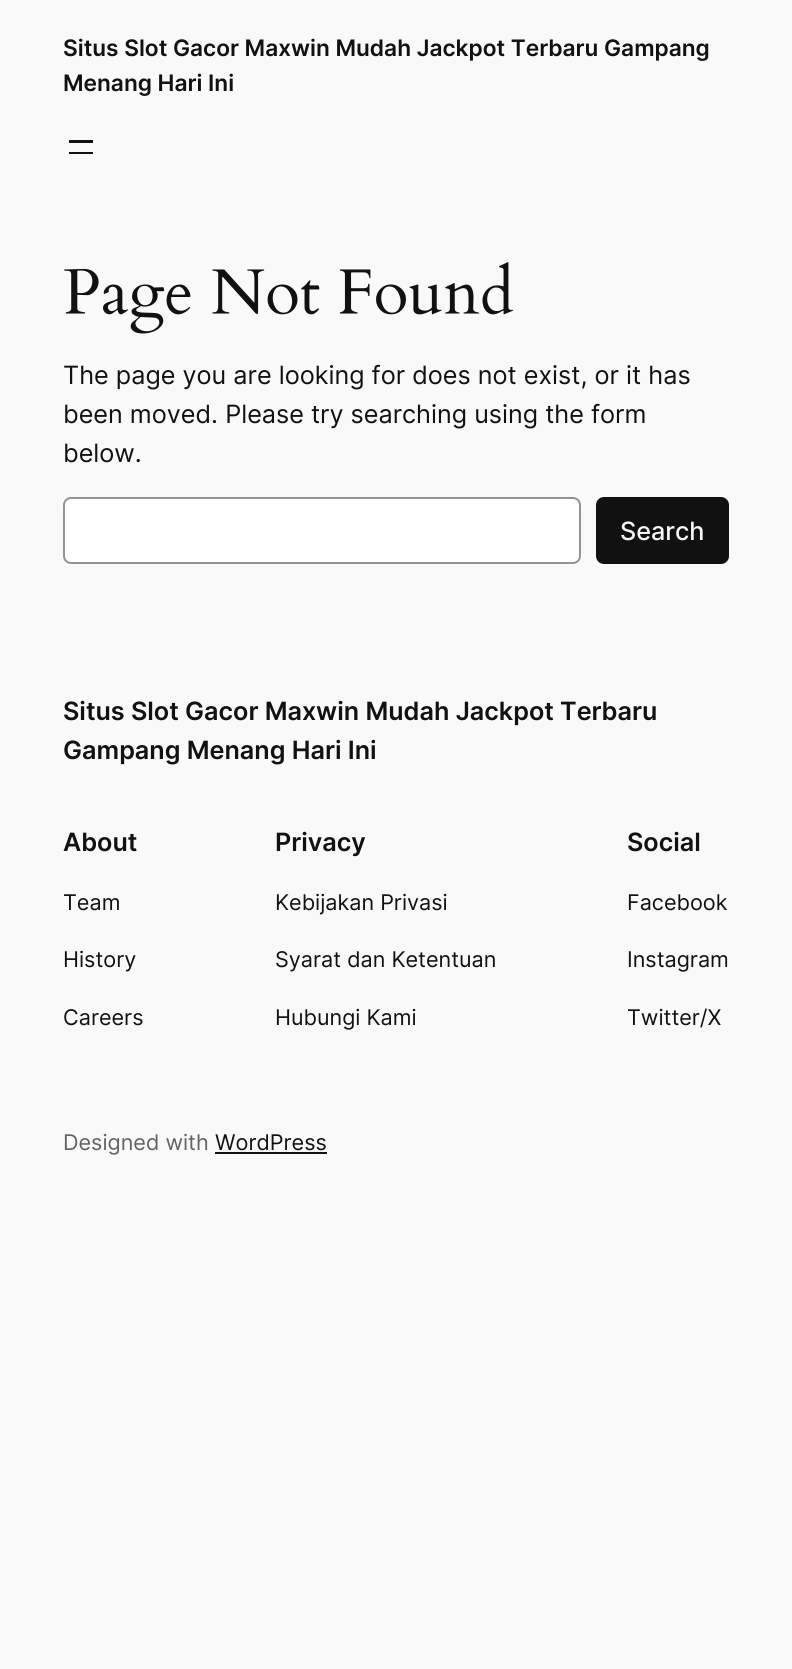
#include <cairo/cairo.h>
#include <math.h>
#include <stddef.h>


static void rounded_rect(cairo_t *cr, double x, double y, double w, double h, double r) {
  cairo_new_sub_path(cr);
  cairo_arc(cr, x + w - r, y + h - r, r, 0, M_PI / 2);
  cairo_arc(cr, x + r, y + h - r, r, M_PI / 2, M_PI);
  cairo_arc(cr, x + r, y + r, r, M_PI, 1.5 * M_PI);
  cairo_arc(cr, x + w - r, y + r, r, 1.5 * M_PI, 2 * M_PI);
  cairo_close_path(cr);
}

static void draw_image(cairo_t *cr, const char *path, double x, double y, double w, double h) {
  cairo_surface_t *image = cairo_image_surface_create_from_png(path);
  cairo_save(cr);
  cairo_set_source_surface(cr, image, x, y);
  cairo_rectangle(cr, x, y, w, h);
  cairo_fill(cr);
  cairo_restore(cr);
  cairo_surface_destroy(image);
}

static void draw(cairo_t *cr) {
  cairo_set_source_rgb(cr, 249 / 255.0, 249 / 255.0, 249 / 255.0);
  cairo_paint(cr);
  cairo_set_source_rgb(cr, 17 / 255.0, 17 / 255.0, 17 / 255.0);
  cairo_rectangle(cr, 69, 140, 24, 3);
  cairo_fill(cr);
  cairo_rectangle(cr, 69, 152, 24, 2);
  cairo_fill(cr);
  draw_image(cr, "images/1.png", 64, 262, 450, 72);
  cairo_set_source_rgb(cr, 1, 1, 1);
  rounded_rect(cr, 64, 498, 516, 65, 7);
  cairo_fill_preserve(cr);
  cairo_set_source_rgb(cr, 148 / 255.0, 148 / 255.0, 148 / 255.0);
  cairo_stroke(cr);
  cairo_set_source_rgb(cr, 17 / 255.0, 17 / 255.0, 17 / 255.0);
  rounded_rect(cr, 596, 497, 133, 67, 8);
  cairo_fill(cr);
  cairo_rectangle(cr, 215, 1152, 112, 2);
  cairo_fill(cr);
  cairo_select_font_face(cr, "Inter SemiBold", CAIRO_FONT_SLANT_NORMAL, CAIRO_FONT_WEIGHT_NORMAL);
  cairo_set_font_size(cr, 22.7);
  cairo_move_to(cr, 63, 56);
  cairo_show_text(cr, "Situs Slot Gacor Maxwin Mudah Jackpot Terbaru Gampang");
  cairo_move_to(cr, 63, 91);
  cairo_show_text(cr, "Menang Hari Ini");
  cairo_select_font_face(cr, "Inter", CAIRO_FONT_SLANT_NORMAL, CAIRO_FONT_WEIGHT_NORMAL);
  cairo_set_font_size(cr, 25.2);
  cairo_move_to(cr, 63, 384);
  cairo_show_text(cr, "The page you are looking for does not exist, or it has");
  cairo_move_to(cr, 63, 423);
  cairo_show_text(cr, "been moved. Please try searching using the form");
  cairo_move_to(cr, 63, 462);
  cairo_show_text(cr, "below.");
  cairo_select_font_face(cr, "Inter Medium", CAIRO_FONT_SLANT_NORMAL, CAIRO_FONT_WEIGHT_NORMAL);
  cairo_set_source_rgb(cr, 249 / 255.0, 249 / 255.0, 249 / 255.0);
  cairo_move_to(cr, 620, 540);
  cairo_show_text(cr, "Search");
  cairo_select_font_face(cr, "Inter SemiBold", CAIRO_FONT_SLANT_NORMAL, CAIRO_FONT_WEIGHT_NORMAL);
  cairo_set_source_rgb(cr, 17 / 255.0, 17 / 255.0, 17 / 255.0);
  cairo_move_to(cr, 63, 720);
  cairo_show_text(cr, "Situs Slot Gacor Maxwin Mudah Jackpot Terbaru");
  cairo_move_to(cr, 63, 759);
  cairo_show_text(cr, "Gampang Menang Hari Ini");
  cairo_move_to(cr, 63, 851);
  cairo_show_text(cr, "About");
  cairo_select_font_face(cr, "Inter", CAIRO_FONT_SLANT_NORMAL, CAIRO_FONT_WEIGHT_NORMAL);
  cairo_set_font_size(cr, 21.6);
  cairo_move_to(cr, 63, 910);
  cairo_show_text(cr, "Team");
  cairo_move_to(cr, 63, 967);
  cairo_show_text(cr, "History");
  cairo_move_to(cr, 63, 1025);
  cairo_show_text(cr, "Careers");
  cairo_select_font_face(cr, "Inter SemiBold", CAIRO_FONT_SLANT_NORMAL, CAIRO_FONT_WEIGHT_NORMAL);
  cairo_set_font_size(cr, 25.2);
  cairo_move_to(cr, 275, 851);
  cairo_show_text(cr, "Privacy");
  cairo_select_font_face(cr, "Inter", CAIRO_FONT_SLANT_NORMAL, CAIRO_FONT_WEIGHT_NORMAL);
  cairo_set_font_size(cr, 21.6);
  cairo_move_to(cr, 275, 910);
  cairo_show_text(cr, "Kebijakan Privasi");
  cairo_move_to(cr, 275, 967);
  cairo_show_text(cr, "Syarat dan Ketentuan");
  cairo_move_to(cr, 275, 1025);
  cairo_show_text(cr, "Hubungi Kami");
  cairo_select_font_face(cr, "Inter SemiBold", CAIRO_FONT_SLANT_NORMAL, CAIRO_FONT_WEIGHT_NORMAL);
  cairo_set_font_size(cr, 25.2);
  cairo_move_to(cr, 627, 851);
  cairo_show_text(cr, "Social");
  cairo_select_font_face(cr, "Inter", CAIRO_FONT_SLANT_NORMAL, CAIRO_FONT_WEIGHT_NORMAL);
  cairo_set_font_size(cr, 21.6);
  cairo_move_to(cr, 627, 910);
  cairo_show_text(cr, "Facebook");
  cairo_move_to(cr, 627, 967);
  cairo_show_text(cr, "Instagram");
  cairo_move_to(cr, 627, 1025);
  cairo_show_text(cr, "Twitter/X");
  cairo_set_source_rgb(cr, 99 / 255.0, 99 / 255.0, 99 / 255.0);
  cairo_move_to(cr, 63, 1150);
  cairo_show_text(cr, "Designed with");
  cairo_set_source_rgb(cr, 17 / 255.0, 17 / 255.0, 17 / 255.0);
  cairo_move_to(cr, 215, 1150);
  cairo_show_text(cr, "WordPress");
}

int main(void) {
  cairo_surface_t *surface = cairo_image_surface_create(CAIRO_FORMAT_RGB24, 792, 1669);
  cairo_t *cr = cairo_create(surface);
  cairo_font_options_t *options = cairo_font_options_create();
  cairo_font_options_set_hint_metrics(options, CAIRO_HINT_METRICS_OFF);
  cairo_font_options_set_hint_style(options, CAIRO_HINT_STYLE_NONE);
  cairo_set_font_options(cr, options);
  cairo_set_miter_limit(cr, 4);
  draw(cr);
  cairo_surface_write_to_png(surface, "out.png");
  cairo_font_options_destroy(options);
  cairo_destroy(cr);
  cairo_surface_destroy(surface);
  return 0;
}
